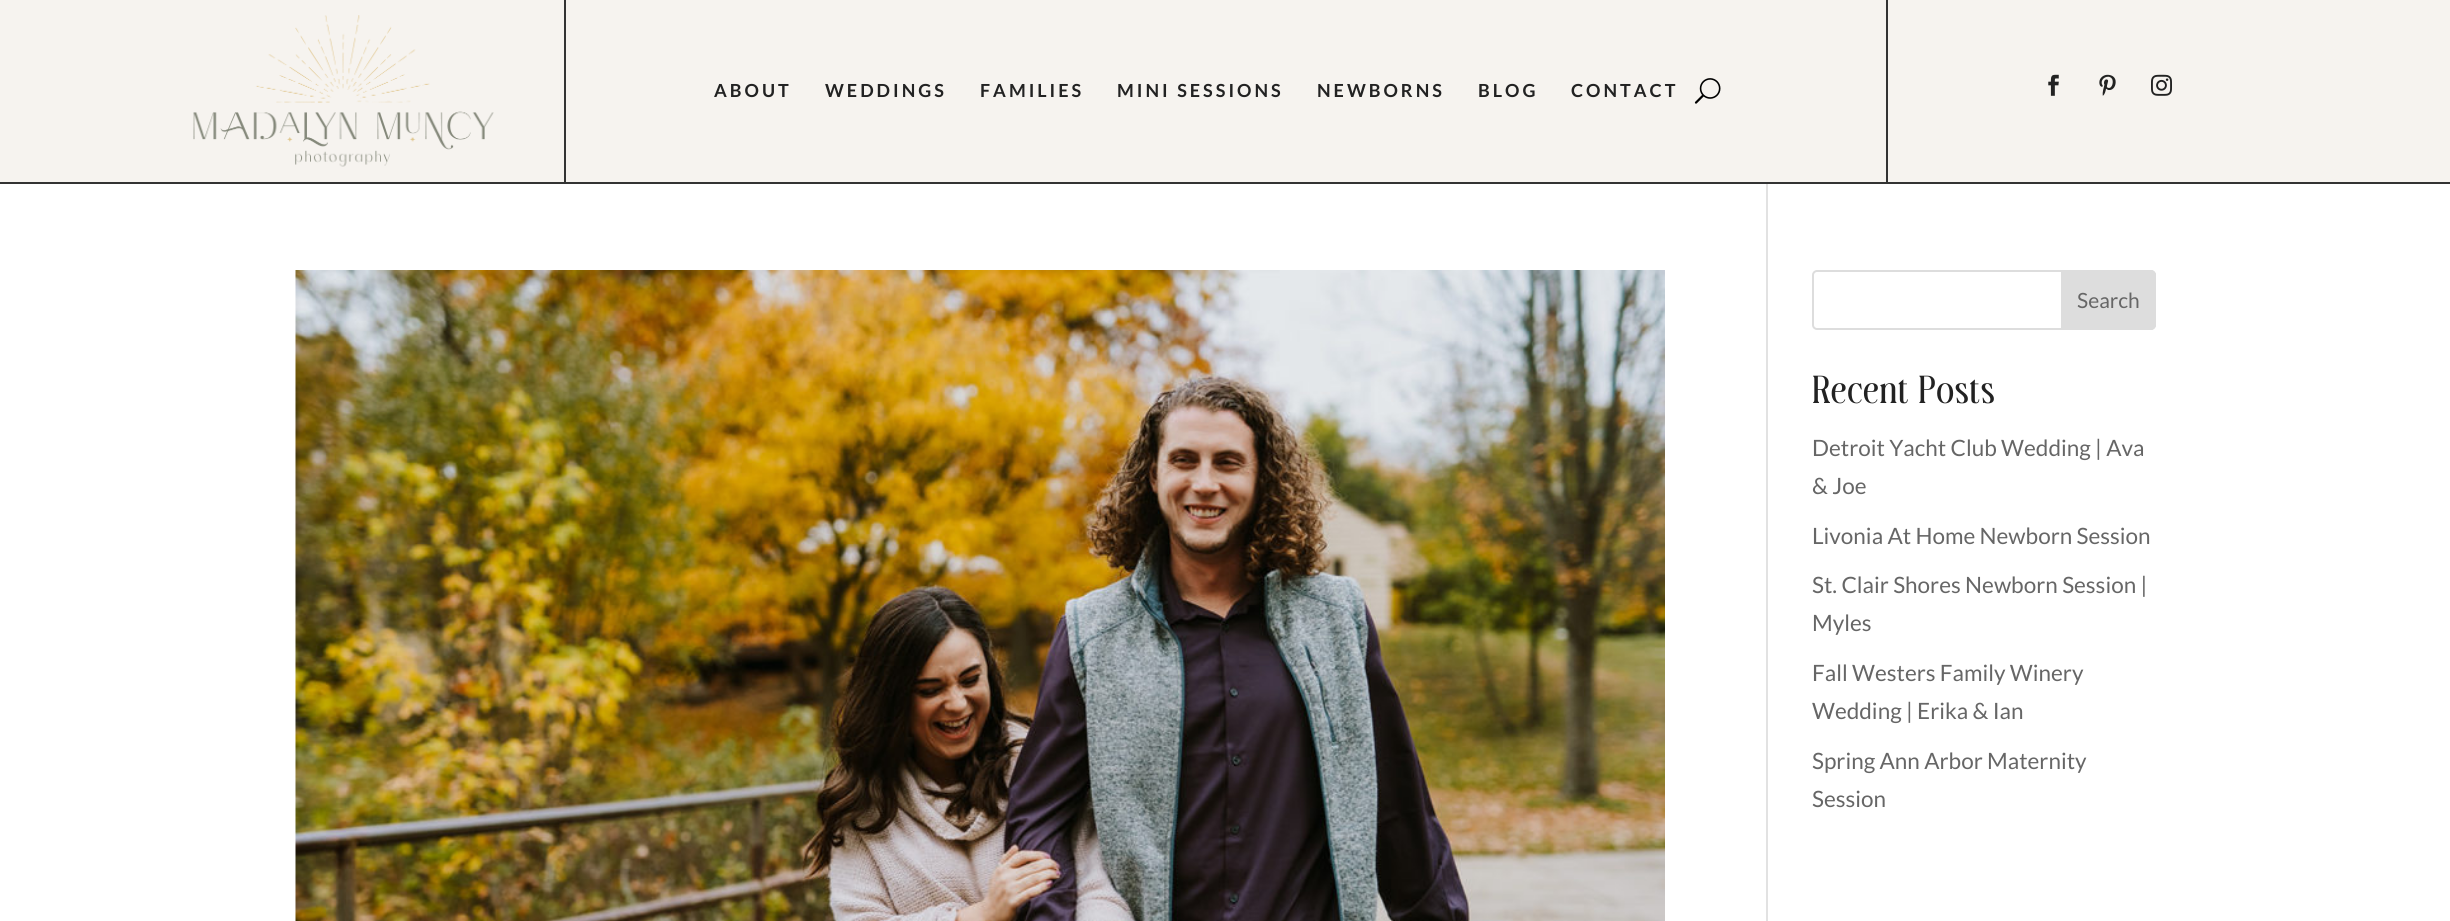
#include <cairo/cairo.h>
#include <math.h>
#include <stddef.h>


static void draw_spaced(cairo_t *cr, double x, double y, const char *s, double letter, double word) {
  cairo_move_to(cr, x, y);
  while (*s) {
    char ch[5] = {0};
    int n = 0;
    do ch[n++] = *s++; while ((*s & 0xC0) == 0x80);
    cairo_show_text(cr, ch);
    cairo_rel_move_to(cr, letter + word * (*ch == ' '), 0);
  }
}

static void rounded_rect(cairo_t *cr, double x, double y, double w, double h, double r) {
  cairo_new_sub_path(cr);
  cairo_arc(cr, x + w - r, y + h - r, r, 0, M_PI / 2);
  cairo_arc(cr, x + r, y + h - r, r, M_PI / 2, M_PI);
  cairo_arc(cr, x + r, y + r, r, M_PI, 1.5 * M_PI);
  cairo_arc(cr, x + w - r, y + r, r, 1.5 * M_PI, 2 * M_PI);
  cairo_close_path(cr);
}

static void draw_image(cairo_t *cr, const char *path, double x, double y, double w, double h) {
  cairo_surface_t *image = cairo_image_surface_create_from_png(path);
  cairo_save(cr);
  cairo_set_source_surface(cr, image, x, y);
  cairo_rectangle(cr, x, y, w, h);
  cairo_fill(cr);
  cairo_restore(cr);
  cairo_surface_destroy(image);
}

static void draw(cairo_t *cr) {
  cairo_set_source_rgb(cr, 1, 1, 1);
  cairo_paint(cr);
  cairo_set_source_rgb(cr, 246 / 255.0, 243 / 255.0, 239 / 255.0);
  cairo_rectangle(cr, 0, 0, 2450, 182);
  cairo_fill(cr);
  cairo_set_source_rgb(cr, 226 / 255.0, 226 / 255.0, 226 / 255.0);
  cairo_rectangle(cr, 1766, 183, 2, 738);
  cairo_fill(cr);
  cairo_set_source_rgb(cr, 51 / 255.0, 51 / 255.0, 51 / 255.0);
  cairo_rectangle(cr, 0, 182, 2450, 2);
  cairo_fill(cr);
  draw_image(cr, "images/1.png", 193, 15, 301, 152);
  cairo_rectangle(cr, 1886, 0, 2, 182);
  cairo_fill(cr);
  cairo_rectangle(cr, 564, 0, 2, 182);
  cairo_fill(cr);
  draw_image(cr, "images/2.png", 1694, 78, 27, 26);
  draw_image(cr, "images/3.png", 2048, 74, 11, 22);
  draw_image(cr, "images/4.png", 2099, 74, 17, 22);
  draw_image(cr, "images/5.png", 2151, 74, 21, 22);
  draw_image(cr, "images/6.png", 295, 270, 1370, 651);
  rounded_rect(cr, 1813, 271, 342, 58, 4);
  cairo_set_source_rgb(cr, 221 / 255.0, 221 / 255.0, 221 / 255.0);
  cairo_stroke(cr);
  cairo_new_path(cr);
  cairo_move_to(cr, 2062, 271);
  cairo_line_to(cr, 2151, 271);
  cairo_curve_to(cr, 2153, 271, 2155, 273, 2155, 275);
  cairo_line_to(cr, 2155, 325);
  cairo_curve_to(cr, 2155, 327, 2153, 329, 2151, 329);
  cairo_line_to(cr, 2062, 329);
  cairo_close_path(cr);
  cairo_fill_preserve(cr);
  cairo_stroke(cr);
  cairo_select_font_face(cr, "Lato", CAIRO_FONT_SLANT_NORMAL, CAIRO_FONT_WEIGHT_BOLD);
  cairo_set_font_size(cr, 18);
  cairo_set_source_rgb(cr, 34 / 255.0, 34 / 255.0, 34 / 255.0);
  draw_spaced(cr, 714, 97, "ABOUT", 3, 0);
  draw_spaced(cr, 825, 97, "WEDDINGS", 3, 0);
  draw_spaced(cr, 980, 97, "FAMILIES", 3, 0);
  draw_spaced(cr, 1117, 97, "MINI SESSIONS", 3, 0);
  draw_spaced(cr, 1317, 97, "NEWBORNS", 3, 0);
  draw_spaced(cr, 1478, 97, "BLOG", 3, 0);
  draw_spaced(cr, 1571, 97, "CONTACT", 3, 0);
  cairo_select_font_face(cr, "Lato", CAIRO_FONT_SLANT_NORMAL, CAIRO_FONT_WEIGHT_NORMAL);
  cairo_set_font_size(cr, 21);
  cairo_set_source_rgb(cr, 102 / 255.0, 102 / 255.0, 102 / 255.0);
  cairo_move_to(cr, 2077, 308);
  cairo_show_text(cr, "Search");
  cairo_select_font_face(cr, "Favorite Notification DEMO", CAIRO_FONT_SLANT_NORMAL, CAIRO_FONT_WEIGHT_NORMAL);
  cairo_set_font_size(cr, 39);
  cairo_set_source_rgb(cr, 34 / 255.0, 34 / 255.0, 34 / 255.0);
  cairo_move_to(cr, 1812, 403);
  cairo_show_text(cr, "Recent Posts");
  cairo_select_font_face(cr, "Lato", CAIRO_FONT_SLANT_NORMAL, CAIRO_FONT_WEIGHT_NORMAL);
  cairo_set_font_size(cr, 22.5);
  cairo_set_source_rgb(cr, 102 / 255.0, 102 / 255.0, 102 / 255.0);
  cairo_move_to(cr, 1812, 456);
  cairo_show_text(cr, "Detroit Yacht Club Wedding | Ava");
  cairo_move_to(cr, 1812, 494);
  cairo_show_text(cr, "& Joe");
  cairo_move_to(cr, 1812, 544);
  cairo_show_text(cr, "Livonia At Home Newborn Session");
  cairo_move_to(cr, 1812, 593);
  cairo_show_text(cr, "St. Clair Shores Newborn Session |");
  cairo_move_to(cr, 1812, 631);
  cairo_show_text(cr, "Myles");
  cairo_move_to(cr, 1812, 681);
  cairo_show_text(cr, "Fall Westers Family Winery");
  cairo_move_to(cr, 1812, 719);
  cairo_show_text(cr, "Wedding | Erika & Ian");
  cairo_move_to(cr, 1812, 769);
  cairo_show_text(cr, "Spring Ann Arbor Maternity");
  cairo_move_to(cr, 1812, 807);
  cairo_show_text(cr, "Session");
}

int main(void) {
  cairo_surface_t *surface = cairo_image_surface_create(CAIRO_FORMAT_RGB24, 2450, 921);
  cairo_t *cr = cairo_create(surface);
  cairo_font_options_t *options = cairo_font_options_create();
  cairo_font_options_set_hint_metrics(options, CAIRO_HINT_METRICS_OFF);
  cairo_font_options_set_hint_style(options, CAIRO_HINT_STYLE_NONE);
  cairo_set_font_options(cr, options);
  cairo_set_miter_limit(cr, 4);
  draw(cr);
  cairo_surface_write_to_png(surface, "out.png");
  cairo_font_options_destroy(options);
  cairo_destroy(cr);
  cairo_surface_destroy(surface);
  return 0;
}
